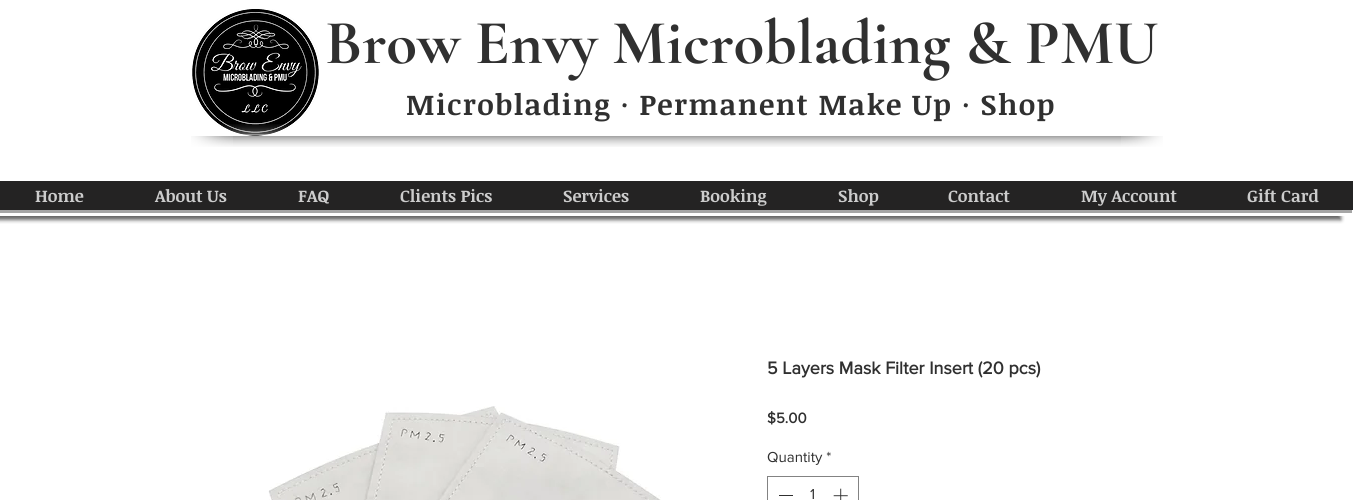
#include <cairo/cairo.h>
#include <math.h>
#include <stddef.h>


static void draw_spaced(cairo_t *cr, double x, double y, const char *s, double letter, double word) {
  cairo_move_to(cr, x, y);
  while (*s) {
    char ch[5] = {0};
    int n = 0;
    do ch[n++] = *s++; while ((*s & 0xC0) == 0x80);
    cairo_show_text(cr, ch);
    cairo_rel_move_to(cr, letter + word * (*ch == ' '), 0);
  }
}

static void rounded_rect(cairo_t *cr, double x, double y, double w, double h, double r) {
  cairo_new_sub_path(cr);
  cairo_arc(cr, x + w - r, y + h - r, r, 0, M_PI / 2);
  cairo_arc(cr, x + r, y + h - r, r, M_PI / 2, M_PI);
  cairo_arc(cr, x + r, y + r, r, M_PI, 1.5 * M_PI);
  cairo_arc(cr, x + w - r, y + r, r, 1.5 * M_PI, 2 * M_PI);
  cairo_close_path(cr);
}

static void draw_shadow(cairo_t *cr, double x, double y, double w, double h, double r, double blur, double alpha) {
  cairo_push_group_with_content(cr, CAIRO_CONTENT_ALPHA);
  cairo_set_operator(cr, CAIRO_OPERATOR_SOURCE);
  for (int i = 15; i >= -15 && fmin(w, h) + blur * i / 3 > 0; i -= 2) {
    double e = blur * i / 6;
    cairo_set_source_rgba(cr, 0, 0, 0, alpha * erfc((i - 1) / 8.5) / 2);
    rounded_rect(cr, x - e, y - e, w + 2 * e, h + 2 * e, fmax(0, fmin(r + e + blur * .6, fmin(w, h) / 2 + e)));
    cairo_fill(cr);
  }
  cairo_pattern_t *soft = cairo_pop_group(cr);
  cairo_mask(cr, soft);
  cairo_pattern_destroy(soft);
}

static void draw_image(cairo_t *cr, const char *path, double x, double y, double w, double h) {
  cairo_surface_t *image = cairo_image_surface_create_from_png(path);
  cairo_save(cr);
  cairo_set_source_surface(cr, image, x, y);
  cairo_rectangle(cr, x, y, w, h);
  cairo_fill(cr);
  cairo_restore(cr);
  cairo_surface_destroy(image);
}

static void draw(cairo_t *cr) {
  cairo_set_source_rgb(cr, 1, 1, 1);
  cairo_paint(cr);
  cairo_save(cr);
  cairo_rectangle(cr, 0, 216, 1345, 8);
  cairo_clip(cr);
  cairo_set_source_rgb(cr, 0, 0, 0);
  draw_shadow(cr, -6, 4, 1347, 216, 0, 2, 0.6);
  cairo_restore(cr);
  draw_image(cr, "images/1.png", 192, 9, 127, 127);
  draw_image(cr, "images/2.png", 233, 124, 888, 23);
  draw_image(cr, "images/3.png", 191, 124, 42, 23);
  draw_image(cr, "images/4.png", 1121, 136, 42, 11);
  cairo_set_source_rgb(cr, 166 / 255.0, 166 / 255.0, 166 / 255.0);
  cairo_new_path(cr);
  cairo_move_to(cr, -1, 184);
  cairo_line_to(cr, -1, 213);
  cairo_line_to(cr, 1352, 213);
  cairo_line_to(cr, 1352, 210);
  cairo_line_to(cr, 0, 210);
  cairo_line_to(cr, 0, 184);
  cairo_close_path(cr);
  cairo_fill(cr);
  cairo_set_source_rgb(cr, 36 / 255.0, 35 / 255.0, 35 / 255.0);
  cairo_rectangle(cr, 0, 181, 1353, 29);
  cairo_fill(cr);
  draw_image(cr, "images/5.png", 268, 406, 393, 94);
  cairo_rectangle(cr, 767.5, 476.5, 91, 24);
  cairo_set_source_rgb(cr, 131 / 255.0, 131 / 255.0, 131 / 255.0);
  cairo_set_line_width(cr, 1);
  cairo_stroke(cr);
  cairo_set_source_rgb(cr, 48 / 255.0, 48 / 255.0, 48 / 255.0);
  cairo_rectangle(cr, 779, 495, 14, 1);
  cairo_fill(cr);
  draw_image(cr, "images/6.png", 833, 488, 15, 12);
  cairo_select_font_face(cr, "Cormorant Garamond", CAIRO_FONT_SLANT_NORMAL, CAIRO_FONT_WEIGHT_BOLD);
  cairo_set_font_size(cr, 63);
  cairo_move_to(cr, 325, 63);
  cairo_show_text(cr, "Brow Envy Microblading & PMU");
  cairo_select_font_face(cr, "Noticia Text", CAIRO_FONT_SLANT_NORMAL, CAIRO_FONT_WEIGHT_BOLD);
  cairo_set_font_size(cr, 29);
  draw_spaced(cr, 406, 115, "Microblading · Permanent Make Up · Shop", 1.45, 0);
  cairo_set_font_size(cr, 17);
  cairo_set_source_rgb(cr, 204 / 255.0, 204 / 255.0, 204 / 255.0);
  cairo_move_to(cr, 35, 202);
  cairo_show_text(cr, "Home");
  cairo_move_to(cr, 155, 202);
  cairo_show_text(cr, "About Us");
  cairo_move_to(cr, 298, 202);
  cairo_show_text(cr, "FAQ");
  cairo_move_to(cr, 400, 202);
  cairo_show_text(cr, "Clients Pics");
  cairo_move_to(cr, 563, 202);
  cairo_show_text(cr, "Services");
  cairo_move_to(cr, 700, 202);
  cairo_show_text(cr, "Booking");
  cairo_move_to(cr, 838, 202);
  cairo_show_text(cr, "Shop");
  cairo_move_to(cr, 948, 202);
  cairo_show_text(cr, "Contact");
  cairo_move_to(cr, 1081, 202);
  cairo_show_text(cr, "My Account");
  cairo_move_to(cr, 1247, 202);
  cairo_show_text(cr, "Gift Card");
  cairo_select_font_face(cr, "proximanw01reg", CAIRO_FONT_SLANT_NORMAL, CAIRO_FONT_WEIGHT_BOLD);
  cairo_set_font_size(cr, 18);
  cairo_set_source_rgb(cr, 48 / 255.0, 48 / 255.0, 48 / 255.0);
  cairo_move_to(cr, 767, 374);
  cairo_show_text(cr, "5 Layers Mask Filter Insert (20 pcs)");
  cairo_set_font_size(cr, 15);
  cairo_move_to(cr, 767, 423);
  cairo_show_text(cr, "$5.00");
  cairo_select_font_face(cr, "proximanw01reg", CAIRO_FONT_SLANT_NORMAL, CAIRO_FONT_WEIGHT_NORMAL);
  cairo_move_to(cr, 767, 462);
  cairo_show_text(cr, "Quantity *");
  cairo_move_to(cr, 810, 499);
  cairo_show_text(cr, "1");
}

int main(void) {
  cairo_surface_t *surface = cairo_image_surface_create(CAIRO_FORMAT_RGB24, 1353, 500);
  cairo_t *cr = cairo_create(surface);
  cairo_font_options_t *options = cairo_font_options_create();
  cairo_font_options_set_hint_metrics(options, CAIRO_HINT_METRICS_OFF);
  cairo_font_options_set_hint_style(options, CAIRO_HINT_STYLE_NONE);
  cairo_set_font_options(cr, options);
  cairo_set_miter_limit(cr, 4);
  draw(cr);
  cairo_surface_write_to_png(surface, "out.png");
  cairo_font_options_destroy(options);
  cairo_destroy(cr);
  cairo_surface_destroy(surface);
  return 0;
}
